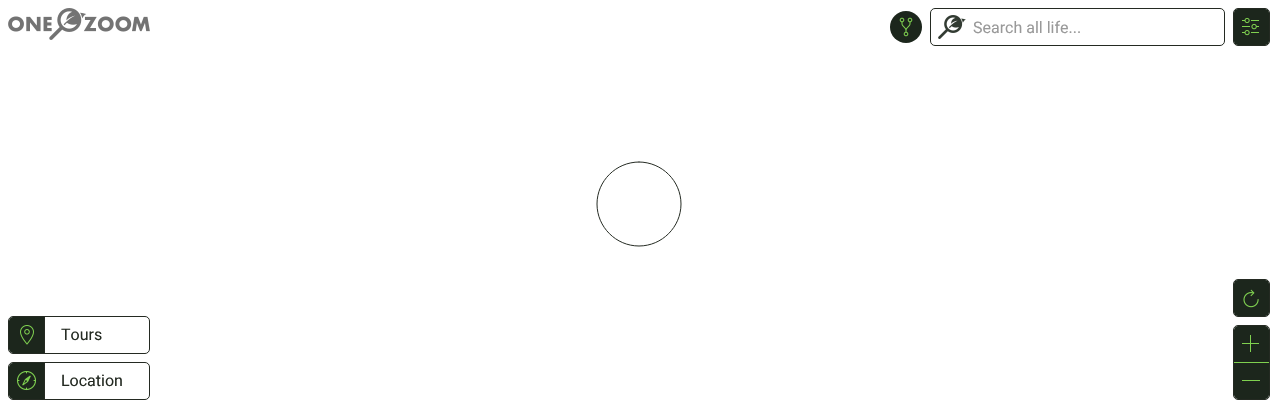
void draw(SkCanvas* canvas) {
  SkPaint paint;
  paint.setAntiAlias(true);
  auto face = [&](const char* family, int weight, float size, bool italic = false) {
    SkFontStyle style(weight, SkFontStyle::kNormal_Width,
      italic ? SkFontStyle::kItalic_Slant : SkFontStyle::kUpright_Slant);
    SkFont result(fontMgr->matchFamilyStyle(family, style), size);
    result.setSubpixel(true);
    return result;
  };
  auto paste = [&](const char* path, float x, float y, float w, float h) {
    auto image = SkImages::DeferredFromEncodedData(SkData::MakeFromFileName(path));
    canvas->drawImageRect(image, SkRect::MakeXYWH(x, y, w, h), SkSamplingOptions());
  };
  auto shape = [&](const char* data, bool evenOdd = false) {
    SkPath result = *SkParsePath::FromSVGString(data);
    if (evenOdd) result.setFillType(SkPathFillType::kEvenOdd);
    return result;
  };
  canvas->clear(0xffffffff);
  paste("img/1.png", 8, 8, 142, 32);
  paint.setColor(0xff1c261c);
  canvas->drawCircle(906, 27, 16, paint);
  paste("img/2.png", 899, 17, 14, 20);
  paint.setStroke(true);
  paint.setStrokeWidth(1);
  paint.setColor(0xff242a22);
  canvas->drawRoundRect(SkRect::MakeXYWH(930.5f, 8.5f, 294, 37), 4.5f, 4.5f, paint);
  paste("img/3.png", 938, 15, 28, 24);
  canvas->drawRoundRect(SkRect::MakeXYWH(1233.5f, 8.5f, 36, 37), 4.5f, 4.5f, paint);
  paint.setStroke(false);
  paint.setColor(0xff1c261c);
  canvas->drawRoundRect(SkRect::MakeXYWH(1234, 9, 35, 36), 4, 4, paint);
  paste("img/4.png", 1242, 17, 17, 19);
  paint.setStroke(true);
  paint.setStrokeCap(SkPaint::kRound_Cap);
  paint.setColor(0xff242a22);
  canvas->drawPath(shape("M639 162C662 162 681 181 681 204C681 227 662 246 639 246C616 246 597 227 597 204C597 181 616 162 639 162"), paint);
  paint.setStrokeCap(SkPaint::kButt_Cap);
  canvas->drawRoundRect(SkRect::MakeXYWH(8.5f, 316.5f, 141, 37), 4.5f, 4.5f, paint);
  paint.setStroke(false);
  paint.setColor(0xff1c261c);
  canvas->drawPath(shape("M13 317H45V353H13C11 353 9 351 9 349V321C9 319 11 317 13 317Z"), paint);
  paint.setColor(0xff242a22);
  canvas->drawRect(SkRect::MakeXYWH(44, 317, 1, 36), paint);
  paste("img/5.png", 20, 325, 14, 20);
  paint.setStroke(true);
  canvas->drawRoundRect(SkRect::MakeXYWH(8.5f, 362.5f, 141, 37), 4.5f, 4.5f, paint);
  paint.setStroke(false);
  paint.setColor(0xff1c261c);
  canvas->drawPath(shape("M13 363H45V399H13C11 399 9 397 9 395V367C9 365 11 363 13 363Z"), paint);
  paint.setColor(0xff242a22);
  canvas->drawRect(SkRect::MakeXYWH(44, 363, 1, 36), paint);
  paste("img/6.png", 17, 371, 20, 20);
  paint.setStroke(true);
  canvas->drawRoundRect(SkRect::MakeXYWH(1233.5f, 279.5f, 36, 37), 4.5f, 4.5f, paint);
  paint.setStroke(false);
  paint.setColor(0xff1c261c);
  canvas->drawRoundRect(SkRect::MakeXYWH(1234, 280, 35, 36), 4, 4, paint);
  paste("img/7.png", 1243, 289, 16, 19);
  paint.setStroke(true);
  paint.setColor(0xff242a22);
  canvas->drawRoundRect(SkRect::MakeXYWH(1233.5f, 325.5f, 36, 74), 4.5f, 4.5f, paint);
  paint.setStroke(false);
  paint.setColor(0xff1c261c);
  canvas->drawPath(shape("M1238 326H1265C1267 326 1269 328 1269 330V362H1234V330C1234 328 1236 326 1238 326Z"), paint);
  paint.setColor(0xff7fd14f);
  canvas->drawRect(SkRect::MakeXYWH(1250, 335, 1, 17), paint);
  canvas->drawRect(SkRect::MakeXYWH(1242, 343, 17, 1), paint);
  paint.setColor(0xff1c261c);
  canvas->drawPath(shape("M1234 362H1269V395C1269 397 1267 399 1265 399H1238C1236 399 1234 397 1234 395Z"), paint);
  paint.setColor(0xff7fd14f);
  canvas->drawRect(SkRect::MakeXYWH(1234, 362, 35, 1), paint);
  canvas->drawRect(SkRect::MakeXYWH(1242, 380, 18, 1), paint);
  auto f0 = face("Roboto", 400, 16);
  paint.setColor(0xff999999);
  canvas->drawString("Search all life...", 973, 33, f0, paint);
  paint.setColor(0xff242a22);
  canvas->drawString("Tours", 61, 340, f0, paint);
  canvas->drawString("Location", 61, 386, f0, paint);
}
